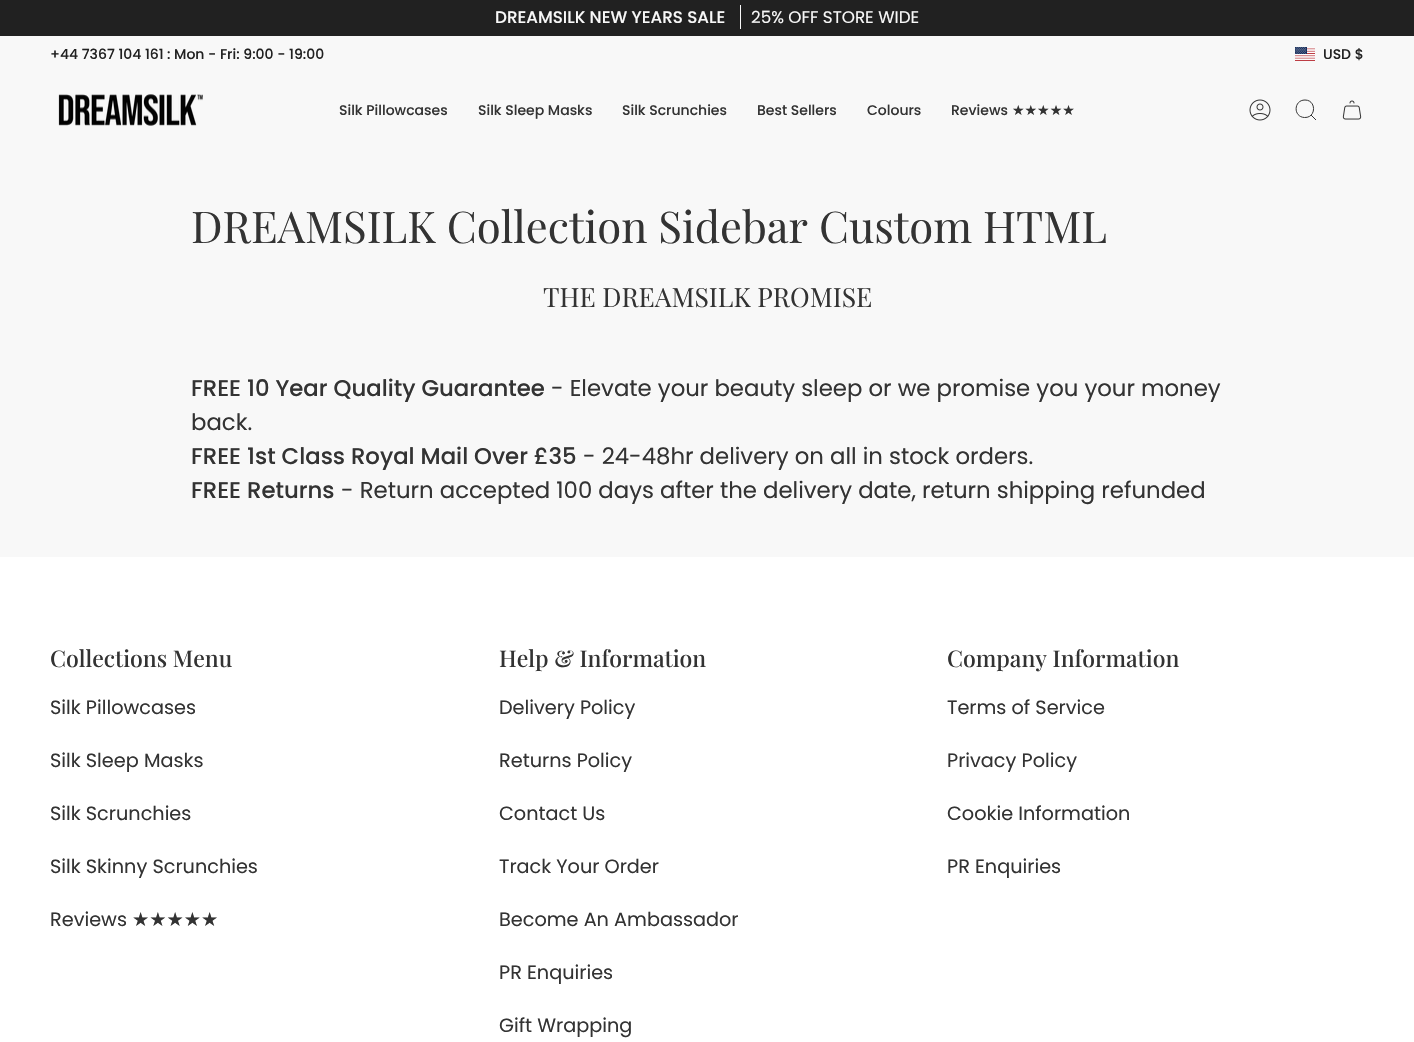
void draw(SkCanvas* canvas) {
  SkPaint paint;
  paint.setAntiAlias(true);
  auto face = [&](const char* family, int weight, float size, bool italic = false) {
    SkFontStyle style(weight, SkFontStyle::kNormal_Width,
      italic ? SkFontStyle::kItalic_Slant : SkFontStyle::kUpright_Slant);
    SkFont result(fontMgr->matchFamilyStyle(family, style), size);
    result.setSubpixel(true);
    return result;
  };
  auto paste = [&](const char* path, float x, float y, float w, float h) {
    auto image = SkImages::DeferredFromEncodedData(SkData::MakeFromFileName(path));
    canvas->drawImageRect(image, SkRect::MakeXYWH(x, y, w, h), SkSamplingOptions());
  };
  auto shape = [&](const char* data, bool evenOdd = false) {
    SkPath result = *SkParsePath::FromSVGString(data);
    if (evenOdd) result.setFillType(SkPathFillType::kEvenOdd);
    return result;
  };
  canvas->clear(0xfff8f8f8);
  paint.setColor(0xff212121);
  canvas->drawRect(SkRect::MakeXYWH(0, 0, 1414, 36), paint);
  paint.setColor(0xfff8f8f8);
  canvas->drawRect(SkRect::MakeXYWH(740, 5, 1, 24), paint);
  paste("img/1.png", 1295, 47, 20, 14);
  paste("img/2.png", 58, 94, 145, 32);
  paste("img/3.png", 1249, 99, 22, 22);
  paint.setStroke(true);
  paint.setStrokeWidth(1);
  paint.setColor(0xff333333);
  canvas->drawPath(shape("M1305 100C1316.5 100 1316.5 118 1304.5 117.5C1293 117 1293.5 100 1305 100ZM1311 115L1316 120"), paint);
  paste("img/4.png", 1342, 100, 20, 20);
  paint.setStroke(false);
  paint.setColor(0xffffffff);
  canvas->drawRect(SkRect::MakeXYWH(0, 557, 1414, 485), paint);
  auto f0 = face("Poppins", 500, 16.75f);
  paint.setColor(0xfff8f8f8);
  canvas->drawString("DREAMSILK NEW YEARS SALE", 495, 23, f0, paint);
  auto f1 = face("Poppins", 400, 16.75f);
  canvas->drawString("25% OFF STORE WIDE", 751, 23, f1, paint);
  auto f2 = face("Poppins", 500, 14);
  paint.setColor(0xff212121);
  {
    const struct { const char* s; float x, y; } items[] = {
      {"+44 7367 104 161", 50, 59},
      {": Mon - Fri: 9:00 - 19:00", 167, 59},
      {"USD $", 1323, 59},
    };
    for (auto [s, x, y] : items) {
      canvas->drawString(s, x, y, f2, paint);
    }
  }
  paint.setColor(0xff333333);
  {
    const struct { const char* s; float x, y; } items[] = {
      {"Silk Pillowcases", 339, 115},
      {"Silk Sleep Masks", 478, 115},
      {"Silk Scrunchies", 622, 115},
      {"Best Sellers", 757, 115},
      {"Colours", 867, 115},
      {"Reviews", 951, 115},
    };
    for (auto [s, x, y] : items) {
      canvas->drawString(s, x, y, f2, paint);
    }
  }
  auto f3 = face("DejaVu Sans", 400, 14);
  canvas->drawString("★★★★★", 1012, 115, f3, paint);
  auto f4 = face("Playfair Display", 400, 43.7f);
  canvas->drawString("DREAMSILK Collection Sidebar Custom HTML", 191, 243, f4, paint);
  auto f5 = face("Playfair Display", 400, 26.5f);
  canvas->drawString("THE DREAMSILK PROMISE", 543, 307, f5, paint);
  auto f6 = face("Poppins", 500, 22.8f);
  canvas->drawString("FREE 10 Year Quality Guarantee", 191, 396, f6, paint);
  auto f7 = face("Poppins", 400, 22.8f);
  canvas->drawString("- Elevate your beauty sleep or we promise you your money", 551, 396, f7, paint);
  canvas->drawString("back.", 191, 430, f7, paint);
  canvas->drawString("FREE 1st Class Royal Mail Over £35", 191, 464, f6, paint);
  canvas->drawString("- 24-48hr delivery on all in stock orders.", 583, 464, f7, paint);
  canvas->drawString("FREE Returns", 191, 498, f6, paint);
  canvas->drawString("- Return accepted 100 days after the delivery date, return shipping refunded", 341, 498, f7, paint);
  auto f8 = face("Playfair Display", 500, 23);
  canvas->drawString("Collections Menu", 50, 667, f8, paint);
  auto f9 = face("Poppins", 400, 19.25f);
  {
    const struct { const char* s; float x, y; } items[] = {
      {"Silk Pillowcases", 50, 714},
      {"Silk Sleep Masks", 50, 767},
      {"Silk Scrunchies", 50, 820},
      {"Silk Skinny Scrunchies", 50, 873},
      {"Reviews", 50, 926},
    };
    for (auto [s, x, y] : items) {
      canvas->drawString(s, x, y, f9, paint);
    }
  }
  auto f10 = face("DejaVu Sans", 400, 19.25f);
  canvas->drawString("★★★★★", 132, 926, f10, paint);
  canvas->drawString("Help & Information", 499, 667, f8, paint);
  {
    const struct { const char* s; float x, y; } items[] = {
      {"Delivery Policy", 499, 714},
      {"Returns Policy", 499, 767},
      {"Contact Us", 499, 820},
      {"Track Your Order", 499, 873},
      {"Become An Ambassador", 499, 926},
      {"PR Enquiries", 499, 979},
      {"Gift Wrapping", 499, 1032},
    };
    for (auto [s, x, y] : items) {
      canvas->drawString(s, x, y, f9, paint);
    }
  }
  canvas->drawString("Company Information", 947, 667, f8, paint);
  {
    const struct { const char* s; float x, y; } items[] = {
      {"Terms of Service", 947, 714},
      {"Privacy Policy", 947, 767},
      {"Cookie Information", 947, 820},
      {"PR Enquiries", 947, 873},
    };
    for (auto [s, x, y] : items) {
      canvas->drawString(s, x, y, f9, paint);
    }
  }
}
